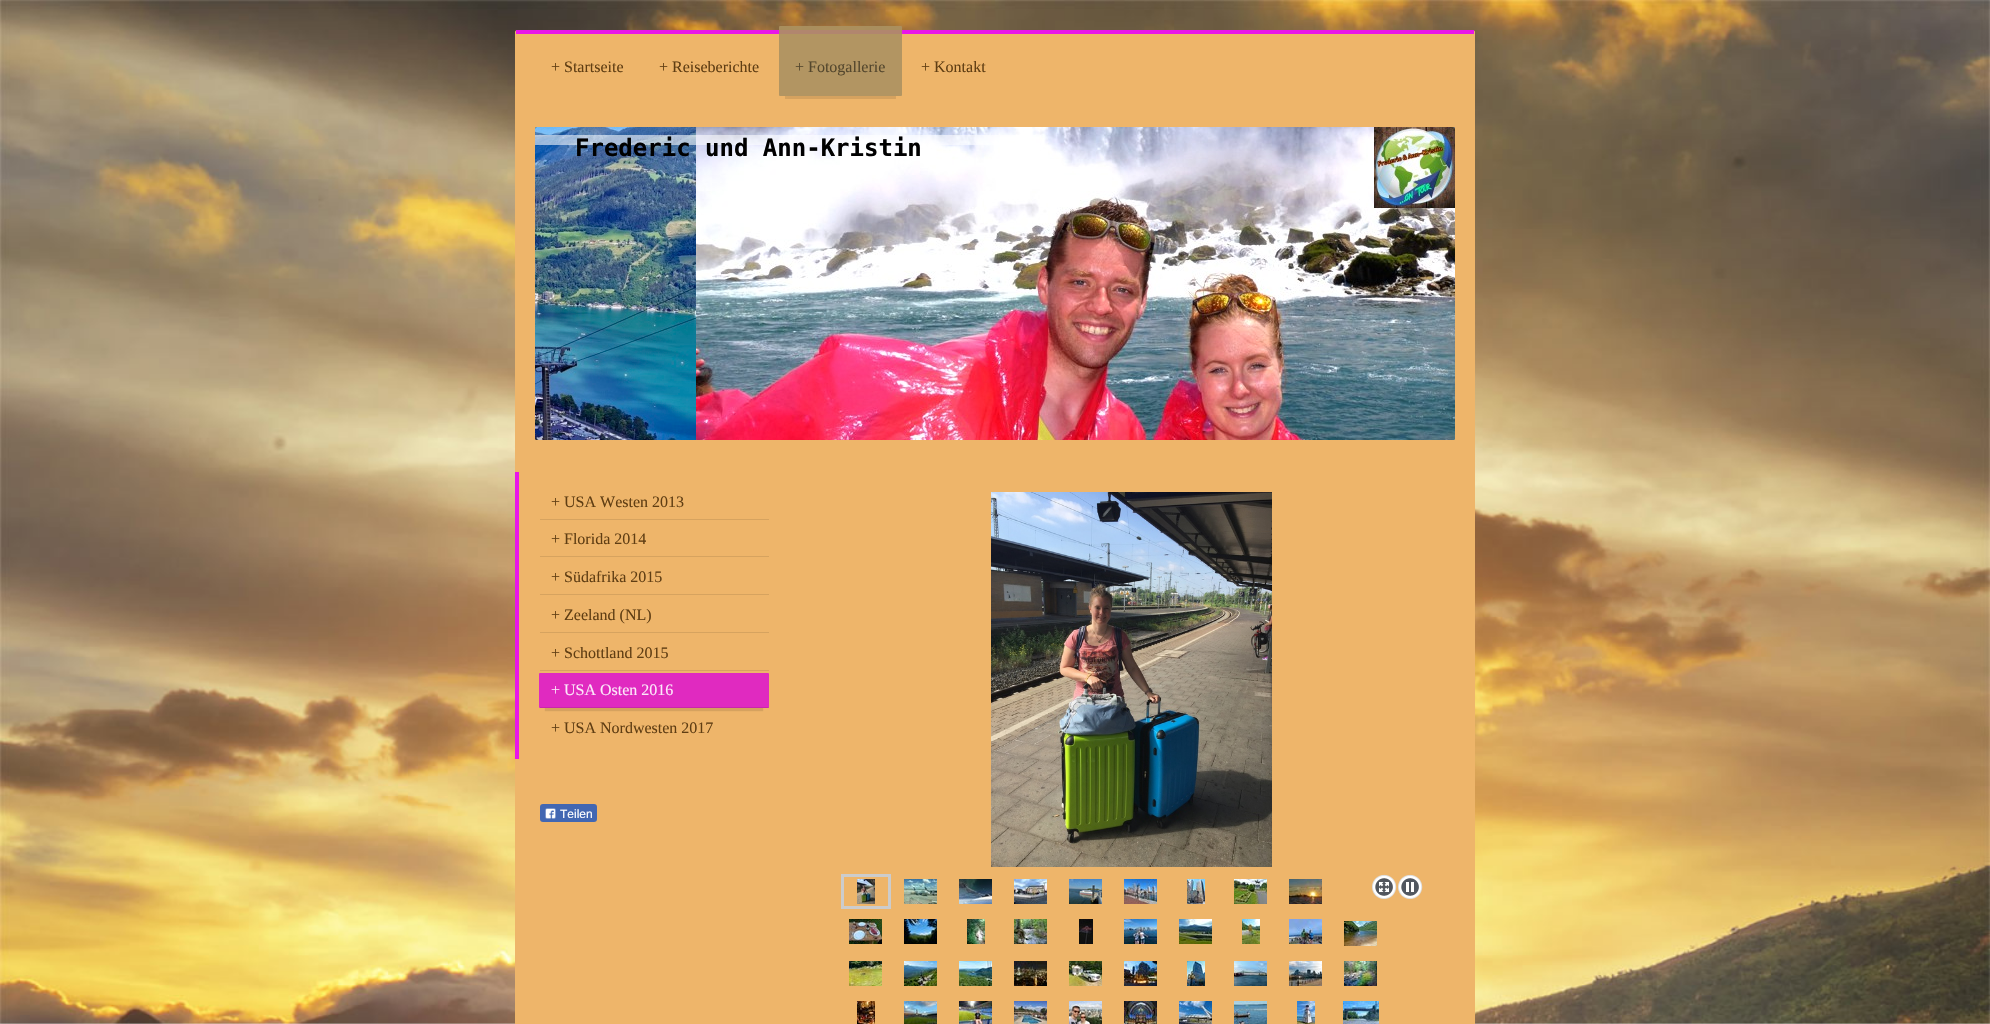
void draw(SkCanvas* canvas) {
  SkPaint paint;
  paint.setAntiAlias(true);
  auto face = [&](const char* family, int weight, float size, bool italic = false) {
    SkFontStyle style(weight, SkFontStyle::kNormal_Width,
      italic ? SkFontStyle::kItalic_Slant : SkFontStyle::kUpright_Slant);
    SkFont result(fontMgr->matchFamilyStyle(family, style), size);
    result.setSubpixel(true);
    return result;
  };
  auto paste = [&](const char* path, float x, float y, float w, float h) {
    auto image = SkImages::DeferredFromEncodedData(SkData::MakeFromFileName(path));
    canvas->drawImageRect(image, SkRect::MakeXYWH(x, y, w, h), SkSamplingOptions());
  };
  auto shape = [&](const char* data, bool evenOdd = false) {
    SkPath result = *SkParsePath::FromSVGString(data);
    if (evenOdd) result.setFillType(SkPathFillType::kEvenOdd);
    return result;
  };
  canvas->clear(0xffffffff);
  paste("img/1.png", 0, 0, 1990, 1024);
  paint.setColor(0xffeeb56a);
  canvas->drawPath(shape("M517 30H1473C1474 30 1475 31 1475 32V1024C1475 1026 1473 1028 1471 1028H519C517 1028 515 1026 515 1024V32C515 31 516 30 517 30Z"), paint);
  paint.setColor(0xffe916e9);
  canvas->drawRect(SkRect::MakeXYWH(516, 30, 958, 4), paint);
  canvas->save();
  canvas->clipRect(SkRect::MakeXYWH(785, 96, 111, 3));
  paint.setColor(0x1a000000);
  paint.setMaskFilter(SkMaskFilter::MakeBlur(kNormal_SkBlurStyle, 0.5f));
  canvas->drawRect(SkRect::MakeXYWH(785, 41, 111, 58), paint);
  paint.setMaskFilter(nullptr);
  canvas->restore();
  paint.setColor(0xe6ab9160);
  canvas->drawRoundRect(SkRect::MakeXYWH(779, 26, 123, 70), 1, 1, paint);
  paste("img/2.png", 535, 127, 920, 313);
  paste("img/3.png", 535, 127, 161, 313);
  paste("img/4.png", 696, 127, 759, 313);
  paint.setColor(0x91ffffff);
  canvas->drawRect(SkRect::MakeXYWH(535, 135, 501, 10), paint);
  paste("img/5.png", 1374, 127, 81, 81);
  {
    const struct { float x, y, w, h; SkColor color; } items[] = {
      {515, 472, 4, 287, 0xffe916e9},
      {540, 519, 229, 1, 0xffd6a35f},
      {540, 556, 229, 1, 0xffd6a35f},
      {540, 594, 229, 1, 0xffd6a35f},
      {540, 632, 229, 1, 0xffd6a35f},
      {540, 670, 229, 1, 0xffd6a35f},
    };
    for (auto [x, y, w, h, color] : items) {
      paint.setColor(color);
      canvas->drawRect(SkRect::MakeXYWH(x, y, w, h), paint);
    }
  }
  paint.setColor(0x1a000000);
  paint.setMaskFilter(SkMaskFilter::MakeBlur(kNormal_SkBlurStyle, 0.5f));
  canvas->drawRect(SkRect::MakeXYWH(545, 688, 218, 23), paint);
  paint.setMaskFilter(nullptr);
  paint.setColor(0xffe02ac0);
  canvas->drawRoundRect(SkRect::MakeXYWH(539, 673, 230, 35), 1, 1, paint);
  paint.setColor(0x1a000000);
  canvas->drawRect(SkRect::MakeXYWH(540, 707, 229, 1), paint);
  paint.setColor(0xff4267b2);
  canvas->drawRoundRect(SkRect::MakeXYWH(540, 804, 57, 18), 3, 3, paint);
  paste("img/6.png", 545, 808, 11, 11);
  paste("img/7.png", 991, 492, 281, 375);
  paint.setStroke(true);
  paint.setStrokeWidth(3);
  paint.setColor(0xffcccccc);
  canvas->drawRect(SkRect::MakeXYWH(842.5f, 875.5f, 47, 32), paint);
  paste("img/8.png", 857, 879, 18, 25);
  paste("img/9.png", 904, 879, 33, 25);
  paste("img/10.png", 959, 879, 33, 25);
  paste("img/11.png", 1014, 879, 33, 25);
  paste("img/12.png", 1069, 879, 33, 25);
  paste("img/13.png", 1124, 879, 33, 25);
  paste("img/14.png", 1187, 879, 18, 25);
  paste("img/15.png", 1234, 879, 33, 25);
  paste("img/16.png", 1289, 879, 33, 25);
  paste("img/17.png", 1372, 874, 25, 25);
  paste("img/18.png", 1398, 874, 25, 25);
  paste("img/19.png", 849, 919, 33, 25);
  paste("img/20.png", 904, 919, 33, 25);
  paste("img/21.png", 967, 919, 18, 25);
  paste("img/22.png", 1014, 919, 33, 25);
  paste("img/23.png", 1079, 919, 14, 25);
  paste("img/24.png", 1124, 919, 33, 25);
  paste("img/25.png", 1179, 919, 33, 25);
  paste("img/26.png", 1242, 919, 18, 25);
  paste("img/27.png", 1289, 919, 33, 25);
  paste("img/28.png", 1344, 921, 33, 25);
  paste("img/29.png", 849, 961, 33, 25);
  paste("img/30.png", 904, 961, 33, 25);
  paste("img/31.png", 959, 961, 33, 25);
  paste("img/32.png", 1014, 961, 33, 25);
  paste("img/33.png", 1069, 961, 33, 25);
  paste("img/34.png", 1124, 961, 33, 25);
  paste("img/35.png", 1187, 961, 18, 25);
  paste("img/36.png", 1234, 961, 33, 25);
  paste("img/37.png", 1289, 961, 33, 25);
  paste("img/38.png", 1344, 961, 33, 25);
  paste("img/39.png", 857, 1001, 18, 23);
  paste("img/40.png", 904, 1001, 33, 23);
  paste("img/41.png", 959, 1001, 33, 23);
  paste("img/42.png", 1014, 1001, 33, 23);
  paste("img/43.png", 1069, 1001, 33, 23);
  paste("img/44.png", 1124, 1001, 33, 23);
  paste("img/45.png", 1179, 1001, 33, 23);
  paste("img/46.png", 1234, 1001, 33, 23);
  paste("img/47.png", 1297, 1001, 18, 23);
  paste("img/48.png", 1343, 1001, 36, 23);
  auto f0 = face("Liberation Serif", 400, 16);
  paint.setStroke(false);
  paint.setColor(0xff603e13);
  canvas->drawString("+ Startseite", 551, 72, f0, paint);
  canvas->drawString("+ Reiseberichte", 659, 72, f0, paint);
  paint.setColor(0xff54472d);
  canvas->drawString("+ Fotogallerie", 795, 72, f0, paint);
  paint.setColor(0xff603e13);
  canvas->drawString("+ Kontakt", 921, 72, f0, paint);
  auto f1 = face("DejaVu Sans Mono", 700, 24);
  paint.setColor(0xff000000);
  canvas->drawString("Frederic und Ann-Kristin", 575, 156, f1, paint);
  paint.setColor(0xff603e13);
  {
    const struct { const char* s; float x, y; } items[] = {
      {"+ USA Westen 2013", 551, 507},
      {"+ Florida 2014", 551, 544},
      {"+ Südafrika 2015", 551, 582},
      {"+ Zeeland (NL)", 551, 620},
      {"+ Schottland 2015", 551, 658},
    };
    for (auto [s, x, y] : items) {
      canvas->drawString(s, x, y, f0, paint);
    }
  }
  paint.setColor(0xfffce8fa);
  canvas->drawString("+ USA Osten 2016", 551, 695, f0, paint);
  paint.setColor(0xff603e13);
  canvas->drawString("+ USA Nordwesten 2017", 551, 733, f0, paint);
  auto f2 = face("Liberation Sans", 400, 12);
  paint.setColor(0xffffffff);
  canvas->drawString("Teilen", 560, 818, f2, paint);
}
